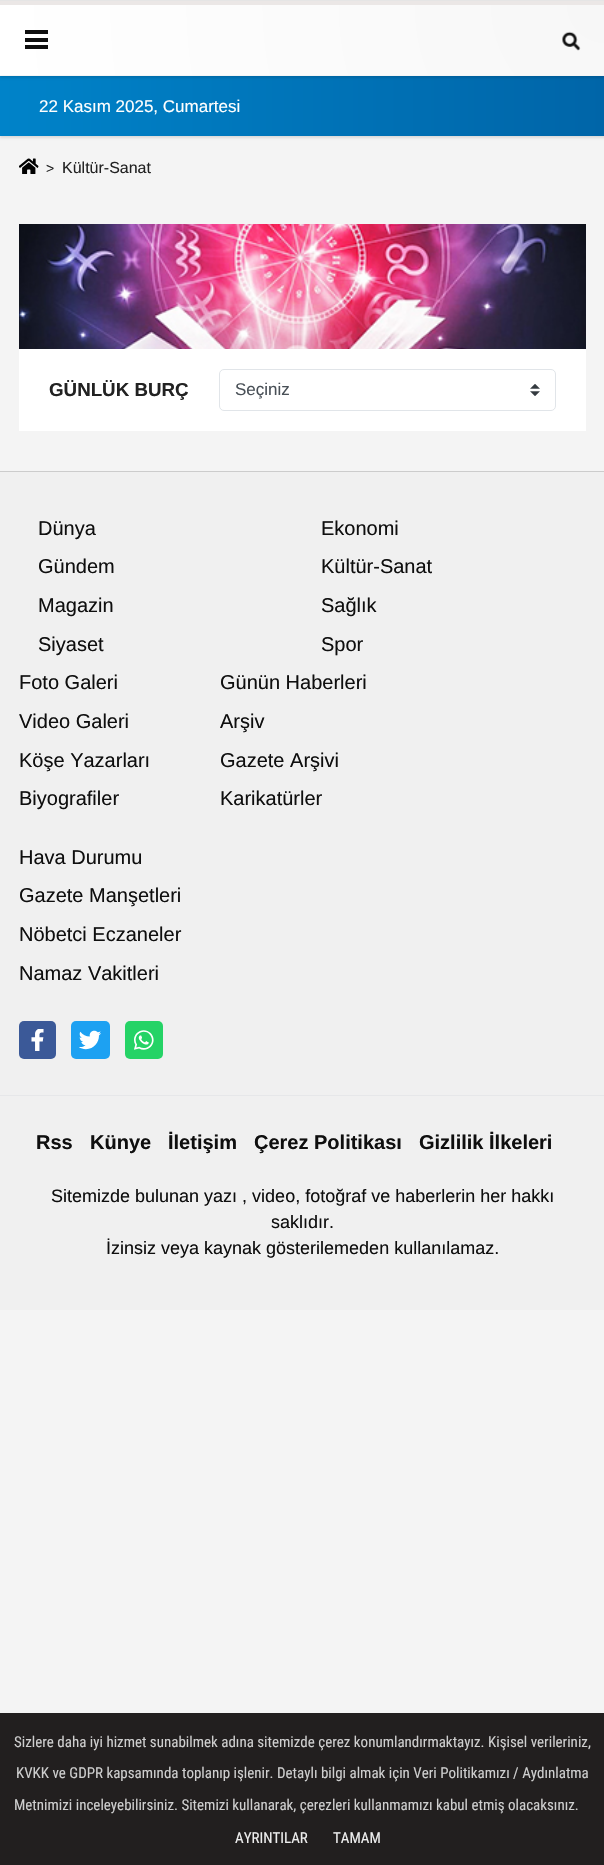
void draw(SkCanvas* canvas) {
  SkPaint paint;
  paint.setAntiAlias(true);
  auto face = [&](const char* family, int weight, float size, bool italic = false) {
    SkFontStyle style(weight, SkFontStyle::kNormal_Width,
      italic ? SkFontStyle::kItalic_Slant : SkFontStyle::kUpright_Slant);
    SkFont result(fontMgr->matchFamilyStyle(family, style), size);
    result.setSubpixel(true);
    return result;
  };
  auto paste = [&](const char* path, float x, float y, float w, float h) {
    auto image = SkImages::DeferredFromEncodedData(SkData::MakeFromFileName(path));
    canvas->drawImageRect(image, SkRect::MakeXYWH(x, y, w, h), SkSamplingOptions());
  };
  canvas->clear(0xfff4f4f4);
  paint.setColor(0xffe6e6e6);
  canvas->drawRect(SkRect::MakeXYWH(0, 0, 604, 1), paint);
  paint.setColor(0x1a000000);
  paint.setMaskFilter(SkMaskFilter::MakeBlur(kNormal_SkBlurStyle, 1));
  canvas->drawRect(SkRect::MakeXYWH(0, 78, 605, 60), paint);
  paint.setMaskFilter(nullptr);
  {
    const SkColor colors[] = {0xff0083c9, 0xff0065a8};
    const float stops[] = {0, 1};
    const SkPoint ends[] = {{0, 106}, {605, 106}};
    paint.setShader(SkGradientShader::MakeLinear(ends, colors, stops, 2, SkTileMode::kClamp));
    paint.setAlpha(255);
  }
  canvas->drawRect(SkRect::MakeXYWH(0, 76, 604, 60), paint);
  paint.setShader(nullptr);
  paint.setColor(0x1a000000);
  paint.setMaskFilter(SkMaskFilter::MakeBlur(kNormal_SkBlurStyle, 1));
  canvas->drawRect(SkRect::MakeXYWH(0, 3, 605, 75), paint);
  paint.setMaskFilter(nullptr);
  {
    const SkColor colors[] = {0xfff7f7f7, 0xffffffff};
    const float stops[] = {0, 1};
    paint.setShader(SkGradientShader::MakeRadial({605, 5}, 609, colors, stops, 2, SkTileMode::kClamp));
    paint.setAlpha(255);
  }
  canvas->drawRect(SkRect::MakeXYWH(0, 5, 604, 70), paint);
  paint.setShader(nullptr);
  {
    const struct { float x, y, w, h; SkColor color; } items[] = {
      {0, 1, 604, 4, 0xffebe7e6},
      {0, 75, 604, 1, 0xfff5f5f5},
      {25, 30, 23, 4, 0xff0f0f0f},
      {25, 38, 23, 4, 0xff0f0f0f},
      {25, 45, 23, 4, 0xff0f0f0f},
    };
    for (auto [x, y, w, h, color] : items) {
      paint.setColor(color);
      canvas->drawRect(SkRect::MakeXYWH(x, y, w, h), paint);
    }
  }
  paste("img/1.png", 562, 31, 19, 20);
  paste("img/2.png", 19, 158, 20, 16);
  paste("img/3.png", 19, 224, 567, 125);
  paint.setColor(0xffffffff);
  canvas->drawRect(SkRect::MakeXYWH(19, 349, 567, 82), paint);
  paste("img/4.png", 530, 384, 10, 12);
  paint.setStroke(true);
  paint.setStrokeWidth(1);
  paint.setColor(0xffe1e5e9);
  canvas->drawRoundRect(SkRect::MakeXYWH(219.5f, 369.5f, 336, 41), 4.5f, 4.5f, paint);
  paint.setStroke(false);
  paint.setColor(0xfff0f0f0);
  canvas->drawRect(SkRect::MakeXYWH(0, 472, 604, 838), paint);
  paint.setColor(0xffcccccc);
  canvas->drawRect(SkRect::MakeXYWH(0, 471, 604, 1), paint);
  paint.setColor(0xff3b5998);
  canvas->drawRoundRect(SkRect::MakeXYWH(19, 1021, 37, 38), 5, 5, paint);
  paste("img/5.png", 31, 1029, 13, 22);
  paint.setColor(0xff1da1f2);
  canvas->drawRoundRect(SkRect::MakeXYWH(71, 1021, 39, 38), 5, 5, paint);
  paste("img/6.png", 79, 1030, 22, 20);
  paint.setColor(0xff25d366);
  canvas->drawRoundRect(SkRect::MakeXYWH(125, 1021, 38, 38), 5, 5, paint);
  paste("img/7.png", 134, 1030, 20, 20);
  paint.setColor(0xffe6e7e9);
  canvas->drawRect(SkRect::MakeXYWH(0, 1095, 604, 1), paint);
  paint.setColor(0xff221f1f);
  canvas->drawRect(SkRect::MakeXYWH(0, 1713, 604, 152), paint);
  auto f0 = face("Liberation Sans", 400, 17);
  paint.setColor(0xffffffff);
  canvas->drawString("22 Kasım 2025, Cumartesi", 39, 112, f0, paint);
  auto f1 = face("Liberation Sans", 400, 14);
  paint.setColor(0xff222222);
  canvas->drawString(">", 46, 173, f1, paint);
  auto f2 = face("Liberation Sans", 400, 16);
  canvas->drawString("Kültür-Sanat", 62, 173, f2, paint);
  auto f3 = face("Liberation Sans", 700, 18.75f);
  canvas->drawString("GÜNLÜK BURÇ", 49, 396, f3, paint);
  paint.setColor(0xff495057);
  canvas->drawString("Seçiniz", 235, 395, f0, paint);
  auto f4 = face("Liberation Sans", 400, 20);
  paint.setColor(0xff0f0f0f);
  {
    const struct { const char* s; float x, y; } items[] = {
      {"Dünya", 38, 535},
      {"Ekonomi", 321, 535},
      {"Gündem", 38, 573},
      {"Kültür-Sanat", 321, 573},
      {"Magazin", 38, 612},
      {"Sağlık", 321, 612},
      {"Siyaset", 38, 651},
      {"Spor", 321, 651},
      {"Foto Galeri", 19, 689},
      {"Video Galeri", 19, 728},
      {"Köşe Yazarları", 19, 767},
      {"Biyografiler", 19, 805},
      {"Günün Haberleri", 220, 689},
      {"Arşiv", 220, 728},
      {"Gazete Arşivi", 220, 767},
      {"Karikatürler", 220, 805},
      {"Hava Durumu", 19, 864},
      {"Gazete Manşetleri", 19, 902},
      {"Nöbetci Eczaneler", 19, 941},
      {"Namaz Vakitleri", 19, 980},
    };
    for (auto [s, x, y] : items) {
      canvas->drawString(s, x, y, f4, paint);
    }
  }
  auto f5 = face("Liberation Sans", 700, 20);
  {
    const struct { const char* s; float x, y; } items[] = {
      {"Rss", 36, 1149},
      {"Künye", 90, 1149},
      {"İletişim", 168, 1149},
      {"Çerez Politikası", 254, 1149},
      {"Gizlilik İlkeleri", 419, 1149},
    };
    for (auto [s, x, y] : items) {
      canvas->drawString(s, x, y, f5, paint);
    }
  }
  auto f6 = face("Liberation Sans", 400, 18);
  {
    const struct { const char* s; float x, y; } items[] = {
      {"Sitemizde bulunan yazı , video, fotoğraf ve haberlerin her hakkı", 51, 1202},
      {"saklıdır.", 271, 1228},
      {"İzinsiz veya kaynak gösterilemeden kullanılamaz.", 106, 1254},
    };
    for (auto [s, x, y] : items) {
      canvas->drawString(s, x, y, f6, paint);
    }
  }
  auto f7 = face("Roboto Condensed", 400, 15);
  paint.setColor(0xffcecece);
  {
    const struct { const char* s; float x, y; } items[] = {
      {"Sizlere daha iyi hizmet sunabilmek adına sitemizde çerez konumlandırmaktayız. Kişisel verileriniz,", 14, 1747},
      {"KVKK ve GDPR kapsamında toplanıp işlenir. Detaylı bilgi almak için Veri Politikamızı / Aydınlatma", 16, 1778},
      {"Metnimizi inceleyebilirsiniz. Sitemizi kullanarak, çerezleri kullanmamızı kabul etmiş olacaksınız.", 14, 1810},
    };
    for (auto [s, x, y] : items) {
      canvas->drawString(s, x, y, f7, paint);
    }
  }
  paint.setColor(0xffeeeeee);
  canvas->drawString("AYRINTILAR", 235, 1843, f7, paint);
  canvas->drawString("TAMAM", 333, 1843, f7, paint);
}
